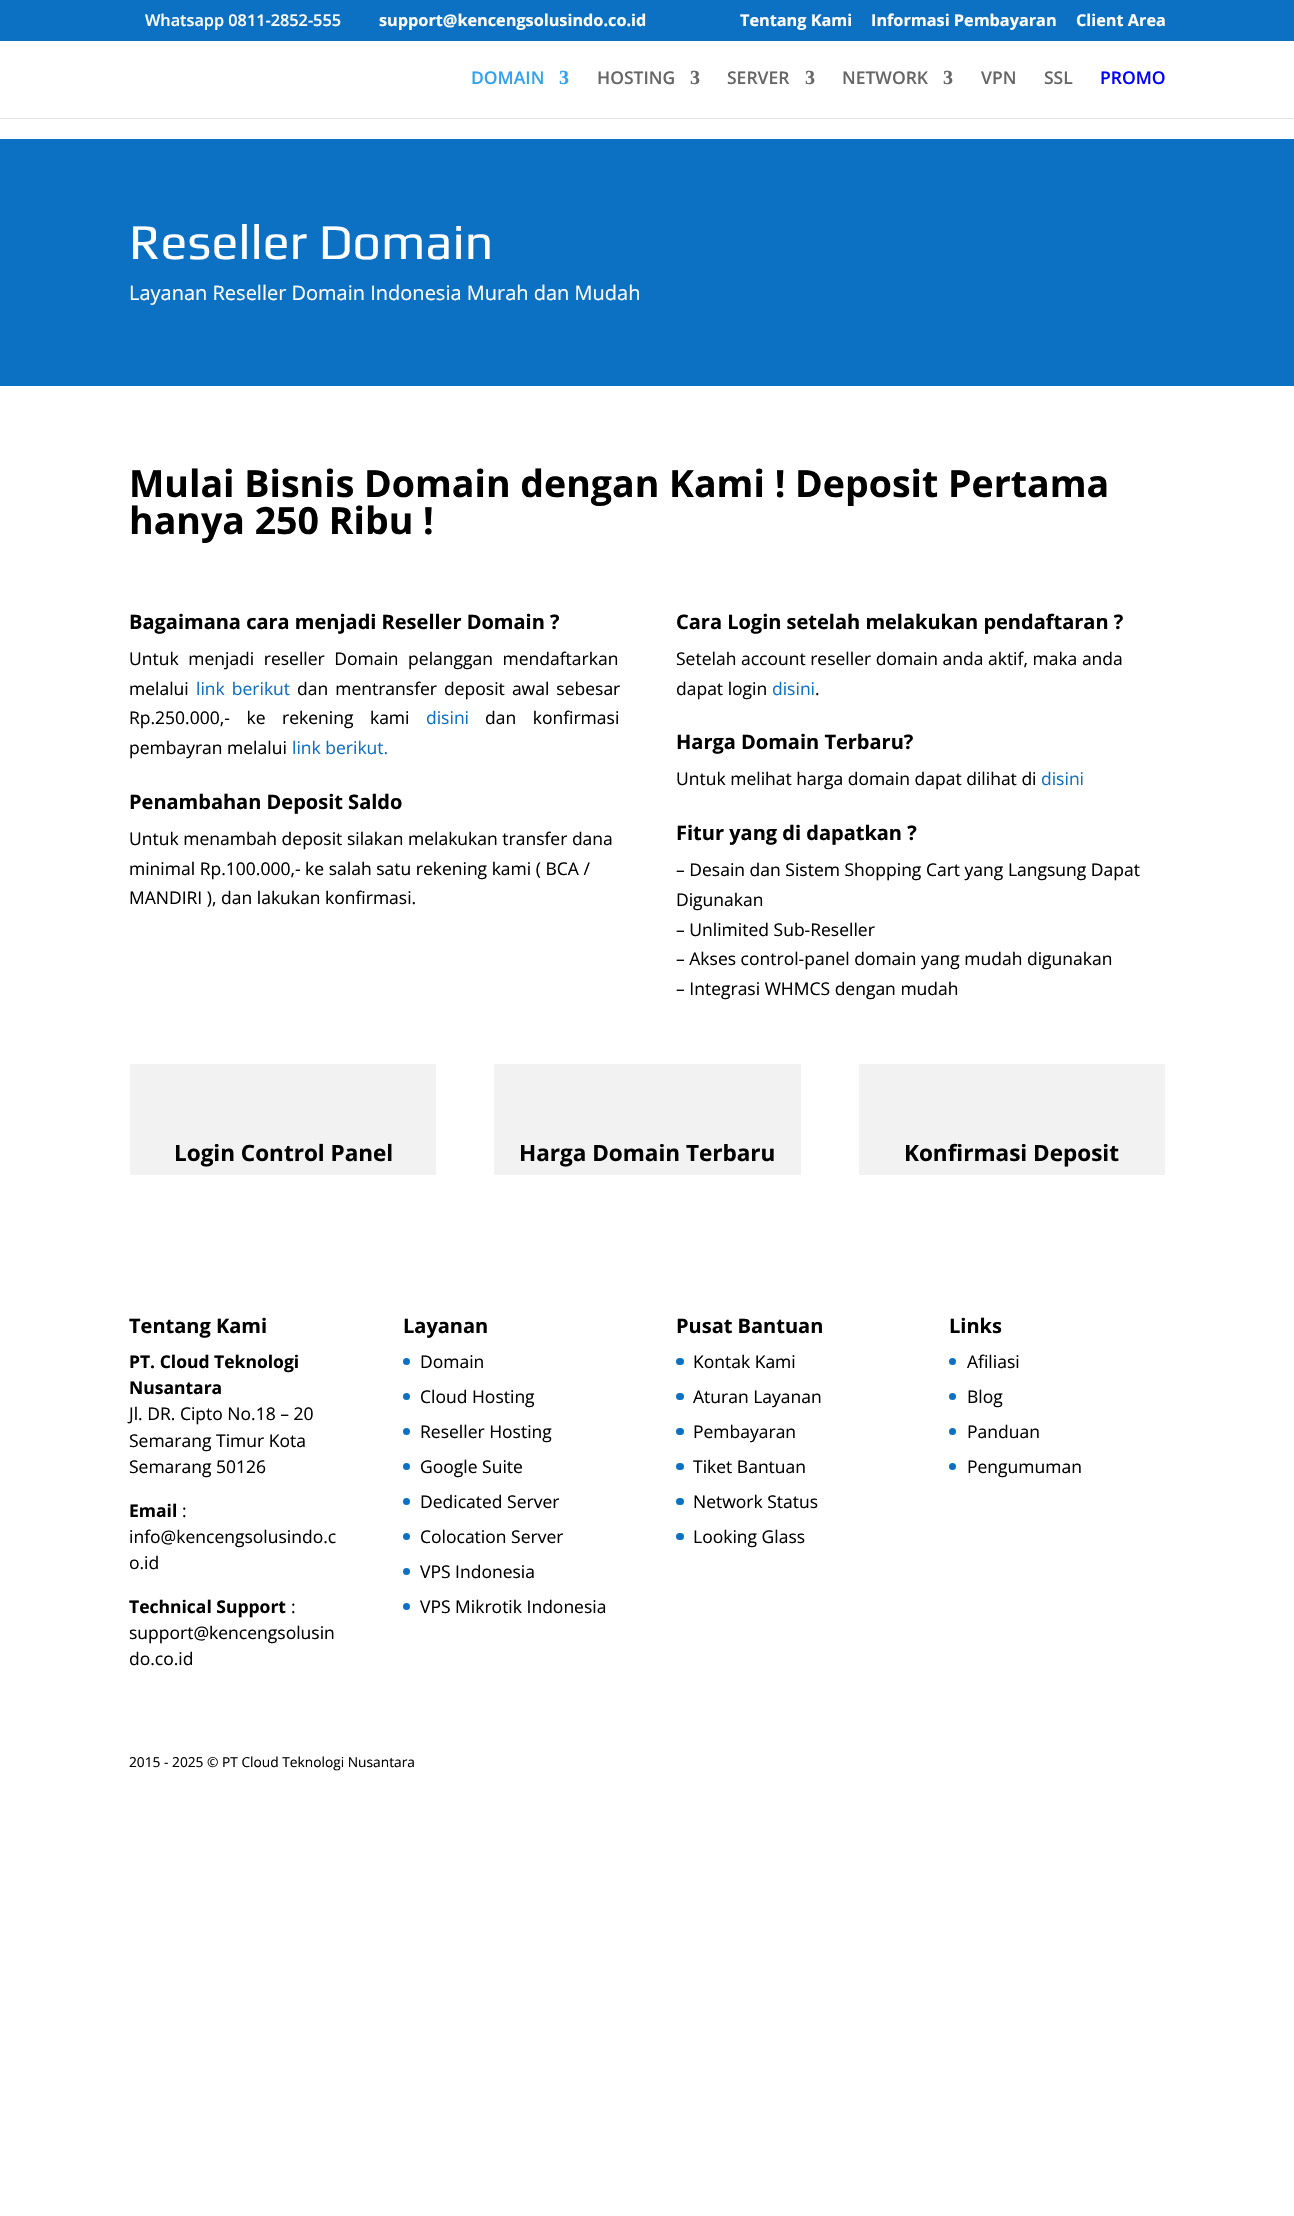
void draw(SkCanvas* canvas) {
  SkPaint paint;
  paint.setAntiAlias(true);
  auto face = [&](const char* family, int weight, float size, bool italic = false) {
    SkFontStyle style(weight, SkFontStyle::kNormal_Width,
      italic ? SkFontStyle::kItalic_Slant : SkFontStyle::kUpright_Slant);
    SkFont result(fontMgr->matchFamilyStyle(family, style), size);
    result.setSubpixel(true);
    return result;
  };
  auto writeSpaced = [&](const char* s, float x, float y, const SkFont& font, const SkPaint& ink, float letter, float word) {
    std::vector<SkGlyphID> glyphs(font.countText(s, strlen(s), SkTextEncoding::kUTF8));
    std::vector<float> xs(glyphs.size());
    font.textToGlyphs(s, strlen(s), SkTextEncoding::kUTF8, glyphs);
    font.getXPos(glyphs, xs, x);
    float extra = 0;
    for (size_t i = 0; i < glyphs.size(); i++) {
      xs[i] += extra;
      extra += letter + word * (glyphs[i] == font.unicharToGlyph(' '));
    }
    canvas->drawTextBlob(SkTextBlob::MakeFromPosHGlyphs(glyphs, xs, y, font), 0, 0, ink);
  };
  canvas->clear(0xffffffff);
  {
    const struct { float x, y, w, h; SkColor color; } items[] = {
      {0, 0, 1294, 41, 0xff0c71c3},
      {0, 118, 1294, 1, 0xffe6e6e6},
      {0, 139, 1294, 247, 0xff0c71c3},
      {130, 1064, 306, 111, 0xfff2f2f2},
      {494, 1064, 307, 111, 0xfff2f2f2},
      {859, 1064, 306, 111, 0xfff2f2f2},
    };
    for (auto [x, y, w, h, color] : items) {
      paint.setColor(color);
      canvas->drawRect(SkRect::MakeXYWH(x, y, w, h), paint);
    }
  }
  paint.setColor(0xff0c71c3);
  canvas->drawCircle(406.5f, 1361.5f, 3.5f, paint);
  canvas->drawCircle(406.5f, 1396.5f, 3.5f, paint);
  canvas->drawCircle(406.5f, 1431.5f, 3.5f, paint);
  canvas->drawCircle(406.5f, 1466.5f, 3.5f, paint);
  canvas->drawCircle(406.5f, 1501.5f, 3.5f, paint);
  canvas->drawCircle(406.5f, 1536.5f, 3.5f, paint);
  canvas->drawCircle(406.5f, 1571.5f, 3.5f, paint);
  canvas->drawCircle(406.5f, 1606.5f, 3.5f, paint);
  canvas->drawRoundRect(SkRect::MakeXYWH(676, 1358, 8, 7), 3.5f, 3.5f, paint);
  canvas->drawRoundRect(SkRect::MakeXYWH(676, 1393, 8, 7), 3.5f, 3.5f, paint);
  canvas->drawRoundRect(SkRect::MakeXYWH(676, 1428, 8, 7), 3.5f, 3.5f, paint);
  canvas->drawRoundRect(SkRect::MakeXYWH(676, 1463, 8, 7), 3.5f, 3.5f, paint);
  canvas->drawRoundRect(SkRect::MakeXYWH(676, 1498, 8, 7), 3.5f, 3.5f, paint);
  canvas->drawRoundRect(SkRect::MakeXYWH(676, 1533, 8, 7), 3.5f, 3.5f, paint);
  canvas->drawCircle(952.5f, 1361.5f, 3.5f, paint);
  canvas->drawCircle(952.5f, 1396.5f, 3.5f, paint);
  canvas->drawCircle(952.5f, 1431.5f, 3.5f, paint);
  canvas->drawCircle(952.5f, 1466.5f, 3.5f, paint);
  auto f0 = face("Open Sans", 600, 16.25f);
  paint.setColor(0xffffffff);
  canvas->drawString("Whatsapp 0811-2852-555", 145, 26, f0, paint);
  auto f1 = face("Open Sans", 700, 16.25f);
  {
    const struct { const char* s; float x, y; } items[] = {
      {"support@kencengsolusindo.co.id", 379, 26},
      {"Tentang Kami", 740, 26},
      {"Informasi Pembayaran", 871, 26},
      {"Client Area", 1076, 26},
    };
    for (auto [s, x, y] : items) {
      canvas->drawString(s, x, y, f1, paint);
    }
  }
  auto f2 = face("Open Sans", 600, 17.5f);
  paint.setColor(0xff2ea3f2);
  canvas->drawString("DOMAIN", 471, 84, f2, paint);
  auto f3 = face("Liberation Serif", 700, 20);
  canvas->drawString("3", 559, 84, f3, paint);
  paint.setColor(0xff666666);
  canvas->drawString("HOSTING", 597, 84, f2, paint);
  canvas->drawString("3", 690, 84, f3, paint);
  canvas->drawString("SERVER", 727, 84, f2, paint);
  canvas->drawString("3", 805, 84, f3, paint);
  canvas->drawString("NETWORK", 842, 84, f2, paint);
  canvas->drawString("3", 943, 84, f3, paint);
  canvas->drawString("VPN", 981, 84, f2, paint);
  canvas->drawString("SSL", 1044, 84, f2, paint);
  paint.setColor(0xff0000ff);
  canvas->drawString("PROMO", 1100, 84, f2, paint);
  auto f4 = face("Play", 400, 50);
  paint.setColor(0xffffffff);
  canvas->drawString("Reseller Domain", 129, 259, f4, paint);
  auto f5 = face("Open Sans", 400, 20);
  canvas->drawString("Layanan Reseller Domain Indonesia Murah dan Mudah", 129, 300, f5, paint);
  auto f6 = face("Open Sans", 700, 37.5f);
  paint.setColor(0xff000000);
  canvas->drawString("Mulai Bisnis Domain dengan Kami ! Deposit Pertama", 129, 497, f6, paint);
  canvas->drawString("hanya 250 Ribu !", 129, 534, f6, paint);
  auto f7 = face("Open Sans", 700, 20);
  canvas->drawString("Bagaimana cara menjadi Reseller Domain ?", 129, 629, f7, paint);
  auto f8 = face("Open Sans", 400, 17.5f);
  writeSpaced("Untuk menjadi reseller Domain pelanggan mendaftarkan", 129, 665, f8, paint, 0, 5);
  canvas->drawString("melalui", 129, 695, f8, paint);
  paint.setColor(0xff0c71c3);
  writeSpaced("link berikut", 196, 695, f8, paint, 0, 2.5f);
  paint.setColor(0xff000000);
  writeSpaced("dan mentransfer deposit awal sebesar", 297, 695, f8, paint, 0, 2.5f);
  writeSpaced("Rp.250.000,- ke rekening kami", 129, 724, f8, paint, 0, 12);
  paint.setColor(0xff0c71c3);
  canvas->drawString("disini", 426, 724, f8, paint);
  paint.setColor(0xff000000);
  writeSpaced("dan konfirmasi", 485, 724, f8, paint, 0, 12);
  canvas->drawString("pembayran melalui", 129, 754, f8, paint);
  paint.setColor(0xff0c71c3);
  canvas->drawString("link berikut.", 292, 754, f8, paint);
  paint.setColor(0xff000000);
  canvas->drawString("Penambahan Deposit Saldo", 129, 809, f7, paint);
  {
    const struct { const char* s; float x, y; } items[] = {
      {"Untuk menambah deposit silakan melakukan transfer dana", 129, 845},
      {"minimal Rp.100.000,- ke salah satu rekening kami ( BCA /", 129, 875},
      {"MANDIRI ), dan lakukan konfirmasi.", 129, 904},
    };
    for (auto [s, x, y] : items) {
      canvas->drawString(s, x, y, f8, paint);
    }
  }
  canvas->drawString("Cara Login setelah melakukan pendaftaran ?", 676, 629, f7, paint);
  canvas->drawString("Setelah account reseller domain anda aktif, maka anda", 676, 665, f8, paint);
  canvas->drawString("dapat login", 676, 695, f8, paint);
  paint.setColor(0xff0c71c3);
  canvas->drawString("disini", 772, 695, f8, paint);
  paint.setColor(0xff000000);
  canvas->drawString(".", 815, 695, f8, paint);
  canvas->drawString("Harga Domain Terbaru?", 676, 749, f7, paint);
  canvas->drawString("Untuk melihat harga domain dapat dilihat di", 676, 785, f8, paint);
  paint.setColor(0xff0c71c3);
  canvas->drawString("disini", 1041, 785, f8, paint);
  paint.setColor(0xff000000);
  canvas->drawString("Fitur yang di dapatkan ?", 676, 840, f7, paint);
  {
    const struct { const char* s; float x, y; } items[] = {
      {"– Desain dan Sistem Shopping Cart yang Langsung Dapat", 676, 876},
      {"Digunakan", 676, 906},
      {"– Unlimited Sub-Reseller", 676, 936},
      {"– Akses control-panel domain yang mudah digunakan", 676, 965},
      {"– Integrasi WHMCS dengan mudah", 676, 995},
    };
    for (auto [s, x, y] : items) {
      canvas->drawString(s, x, y, f8, paint);
    }
  }
  auto f9 = face("Open Sans", 700, 22.5f);
  {
    const struct { const char* s; float x, y; } items[] = {
      {"Login Control Panel", 174, 1161},
      {"Harga Domain Terbaru", 519, 1161},
      {"Konfirmasi Deposit", 904, 1161},
    };
    for (auto [s, x, y] : items) {
      canvas->drawString(s, x, y, f9, paint);
    }
  }
  canvas->drawString("Tentang Kami", 129, 1333, f7, paint);
  auto f10 = face("Open Sans", 700, 17.5f);
  canvas->drawString("PT. Cloud Teknologi", 129, 1368, f10, paint);
  canvas->drawString("Nusantara", 129, 1394, f10, paint);
  {
    const struct { const char* s; float x, y; } items[] = {
      {"Jl. DR. Cipto No.18 – 20", 129, 1420},
      {"Semarang Timur Kota", 129, 1447},
      {"Semarang 50126", 129, 1473},
    };
    for (auto [s, x, y] : items) {
      canvas->drawString(s, x, y, f8, paint);
    }
  }
  canvas->drawString("Email", 129, 1517, f10, paint);
  {
    const struct { const char* s; float x, y; } items[] = {
      {":", 182, 1517},
      {"info@kencengsolusindo.c", 129, 1543},
      {"o.id", 129, 1569},
    };
    for (auto [s, x, y] : items) {
      canvas->drawString(s, x, y, f8, paint);
    }
  }
  canvas->drawString("Technical Support", 129, 1613, f10, paint);
  {
    const struct { const char* s; float x, y; } items[] = {
      {":", 291, 1613},
      {"support@kencengsolusin", 129, 1639},
      {"do.co.id", 129, 1665},
    };
    for (auto [s, x, y] : items) {
      canvas->drawString(s, x, y, f8, paint);
    }
  }
  canvas->drawString("Layanan", 403, 1333, f7, paint);
  {
    const struct { const char* s; float x, y; } items[] = {
      {"Domain", 420, 1368},
      {"Cloud Hosting", 420, 1403},
      {"Reseller Hosting", 420, 1438},
      {"Google Suite", 420, 1473},
      {"Dedicated Server", 420, 1508},
      {"Colocation Server", 420, 1543},
      {"VPS Indonesia", 420, 1578},
      {"VPS Mikrotik Indonesia", 420, 1613},
    };
    for (auto [s, x, y] : items) {
      canvas->drawString(s, x, y, f8, paint);
    }
  }
  canvas->drawString("Pusat Bantuan", 676, 1333, f7, paint);
  {
    const struct { const char* s; float x, y; } items[] = {
      {"Kontak Kami", 693, 1368},
      {"Aturan Layanan", 693, 1403},
      {"Pembayaran", 693, 1438},
      {"Tiket Bantuan", 693, 1473},
      {"Network Status", 693, 1508},
      {"Looking Glass", 693, 1543},
    };
    for (auto [s, x, y] : items) {
      canvas->drawString(s, x, y, f8, paint);
    }
  }
  canvas->drawString("Links", 949, 1333, f7, paint);
  {
    const struct { const char* s; float x, y; } items[] = {
      {"Afiliasi", 967, 1368},
      {"Blog", 967, 1403},
      {"Panduan", 967, 1438},
      {"Pengumuman", 967, 1473},
    };
    for (auto [s, x, y] : items) {
      canvas->drawString(s, x, y, f8, paint);
    }
  }
  auto f11 = face("Open Sans", 400, 13.75f);
  canvas->drawString("2015 - 2025 © PT Cloud Teknologi Nusantara", 129, 1767, f11, paint);
}
